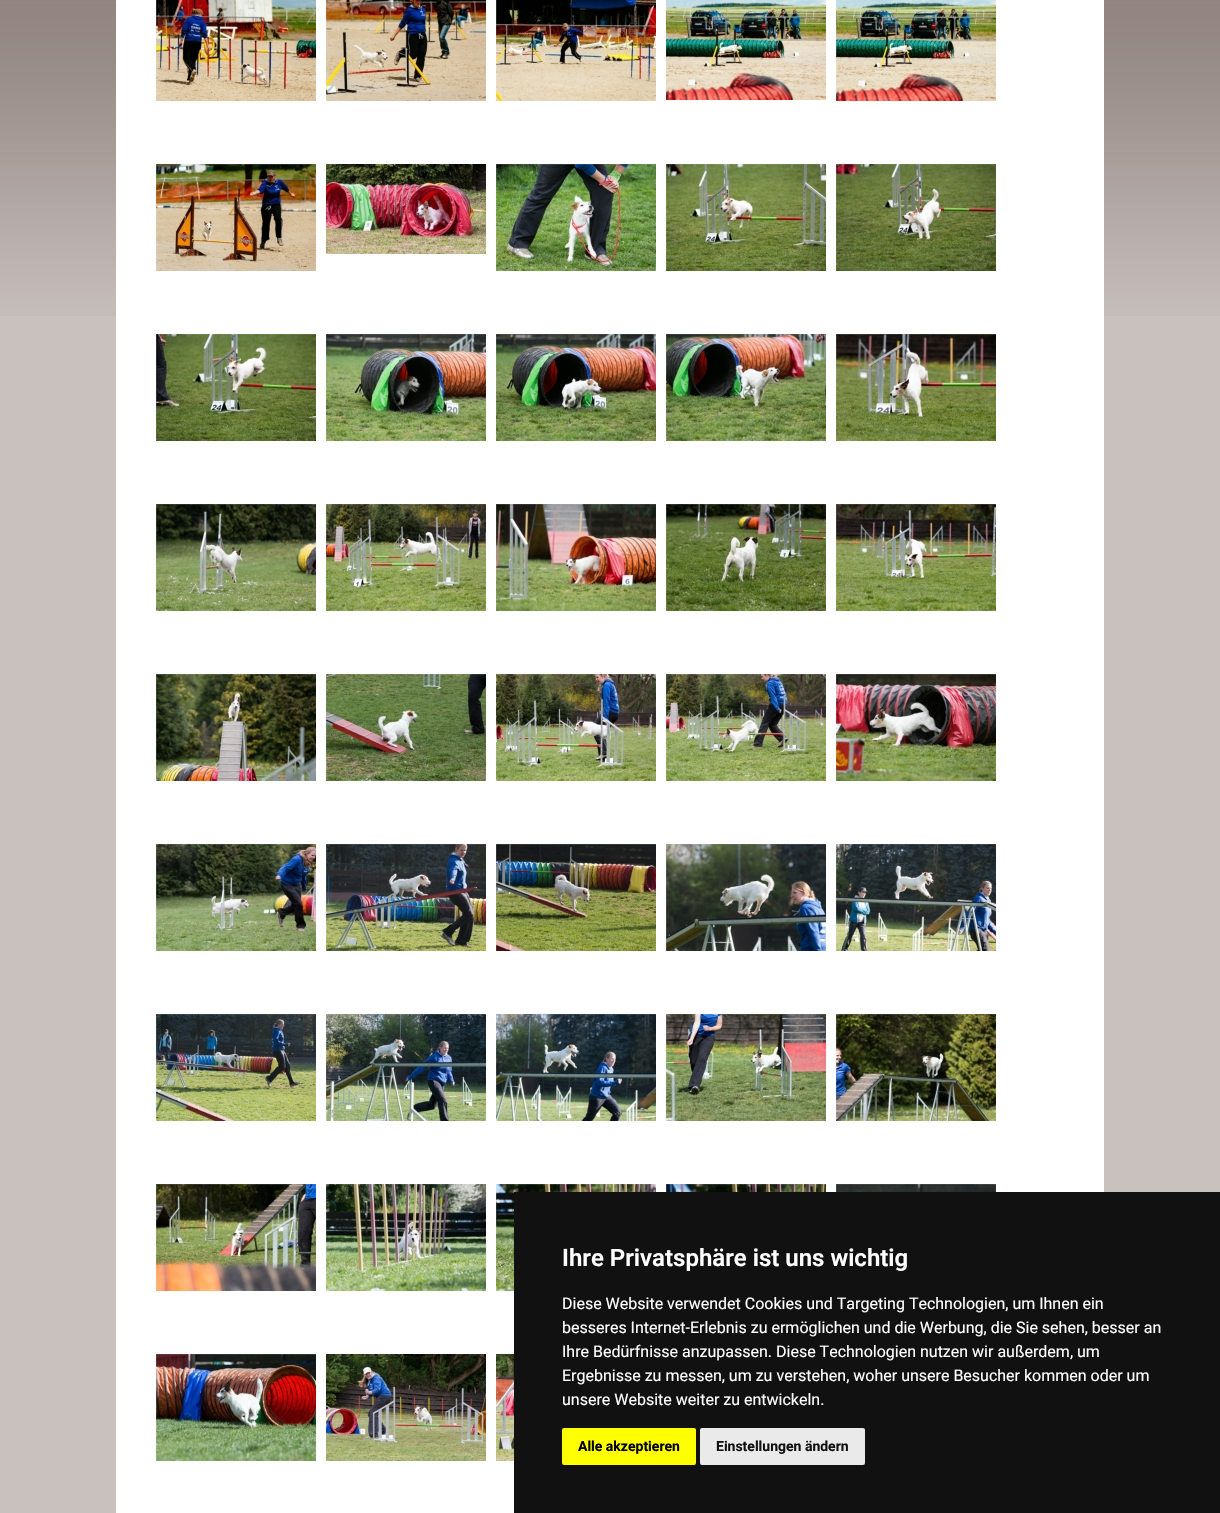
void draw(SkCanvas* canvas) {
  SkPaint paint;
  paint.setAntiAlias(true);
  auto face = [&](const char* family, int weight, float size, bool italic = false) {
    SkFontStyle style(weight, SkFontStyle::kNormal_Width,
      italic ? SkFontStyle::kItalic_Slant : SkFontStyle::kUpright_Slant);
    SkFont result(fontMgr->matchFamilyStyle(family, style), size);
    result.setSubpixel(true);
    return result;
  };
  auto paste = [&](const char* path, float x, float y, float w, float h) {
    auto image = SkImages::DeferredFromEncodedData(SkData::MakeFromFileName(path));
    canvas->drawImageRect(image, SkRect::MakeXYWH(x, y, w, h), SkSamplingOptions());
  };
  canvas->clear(0xffc9c1be);
  paste("img/1.png", 0, 0, 1220, 316);
  paint.setStroke(true);
  paint.setStrokeWidth(1);
  paint.setColor(0xffffffff);
  canvas->drawRect(SkRect::MakeXYWH(116.5f, -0.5f, 987, 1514), paint);
  paint.setStroke(false);
  canvas->drawRect(SkRect::MakeXYWH(117, 0, 986, 1513), paint);
  paste("img/2.png", 156, 0, 160, 101);
  paste("img/3.png", 326, 0, 160, 101);
  paste("img/4.png", 496, 0, 160, 101);
  paste("img/5.png", 666, 0, 160, 100);
  paste("img/6.png", 836, 0, 160, 101);
  paste("img/7.png", 156, 164, 160, 107);
  paste("img/8.png", 326, 164, 160, 90);
  paste("img/9.png", 496, 164, 160, 107);
  paste("img/10.png", 666, 164, 160, 107);
  paste("img/11.png", 836, 164, 160, 107);
  paste("img/12.png", 156, 334, 160, 107);
  paste("img/13.png", 326, 334, 160, 107);
  paste("img/14.png", 496, 334, 160, 107);
  paste("img/15.png", 666, 334, 160, 107);
  paste("img/16.png", 836, 334, 160, 107);
  paste("img/17.png", 156, 504, 160, 107);
  paste("img/18.png", 326, 504, 160, 107);
  paste("img/19.png", 496, 504, 160, 107);
  paste("img/20.png", 666, 504, 160, 107);
  paste("img/21.png", 836, 504, 160, 107);
  paste("img/22.png", 156, 674, 160, 107);
  paste("img/23.png", 326, 674, 160, 107);
  paste("img/24.png", 496, 674, 160, 107);
  paste("img/25.png", 666, 674, 160, 107);
  paste("img/26.png", 836, 674, 160, 107);
  paste("img/27.png", 156, 844, 160, 107);
  paste("img/28.png", 326, 844, 160, 107);
  paste("img/29.png", 496, 844, 160, 107);
  paste("img/30.png", 666, 844, 160, 107);
  paste("img/31.png", 836, 844, 160, 107);
  paste("img/32.png", 156, 1014, 160, 107);
  paste("img/33.png", 326, 1014, 160, 107);
  paste("img/34.png", 496, 1014, 160, 107);
  paste("img/35.png", 666, 1014, 160, 107);
  paste("img/36.png", 836, 1014, 160, 107);
  paste("img/37.png", 156, 1184, 160, 107);
  paste("img/38.png", 326, 1184, 160, 107);
  paste("img/39.png", 496, 1184, 160, 107);
  paste("img/40.png", 666, 1184, 160, 8);
  paste("img/41.png", 836, 1184, 160, 8);
  paste("img/42.png", 156, 1354, 160, 107);
  paste("img/43.png", 326, 1354, 160, 107);
  paste("img/44.png", 496, 1354, 18, 107);
  paint.setColor(0xff111111);
  canvas->drawRect(SkRect::MakeXYWH(514, 1192, 706, 321), paint);
  paint.setColor(0xffffff00);
  canvas->drawRoundRect(SkRect::MakeXYWH(562, 1428, 134, 37), 2, 2, paint);
  paint.setColor(0xffeaeaea);
  canvas->drawRoundRect(SkRect::MakeXYWH(700, 1428, 165, 37), 2, 2, paint);
  auto f0 = face("Roboto", 600, 24);
  paint.setColor(0xffffffff);
  canvas->drawString("Ihre Privatsphäre ist uns wichtig", 562, 1266, f0, paint);
  auto f1 = face("Roboto", 400, 16);
  {
    const struct { const char* s; float x, y; } items[] = {
      {"Diese Website verwendet Cookies und Targeting Technologien, um Ihnen ein", 562, 1309},
      {"besseres Internet-Erlebnis zu ermöglichen und die Werbung, die Sie sehen, besser an", 562, 1333},
      {"Ihre Bedürfnisse anzupassen. Diese Technologien nutzen wir außerdem, um", 562, 1357},
      {"Ergebnisse zu messen, um zu verstehen, woher unsere Besucher kommen oder um", 562, 1381},
      {"unsere Website weiter zu entwickeln.", 562, 1405},
    };
    for (auto [s, x, y] : items) {
      canvas->drawString(s, x, y, f1, paint);
    }
  }
  auto f2 = face("Roboto", 700, 14);
  paint.setColor(0xff000000);
  canvas->drawString("Alle akzeptieren", 578, 1451, f2, paint);
  paint.setColor(0xff111111);
  canvas->drawString("Einstellungen ändern", 716, 1451, f2, paint);
}
